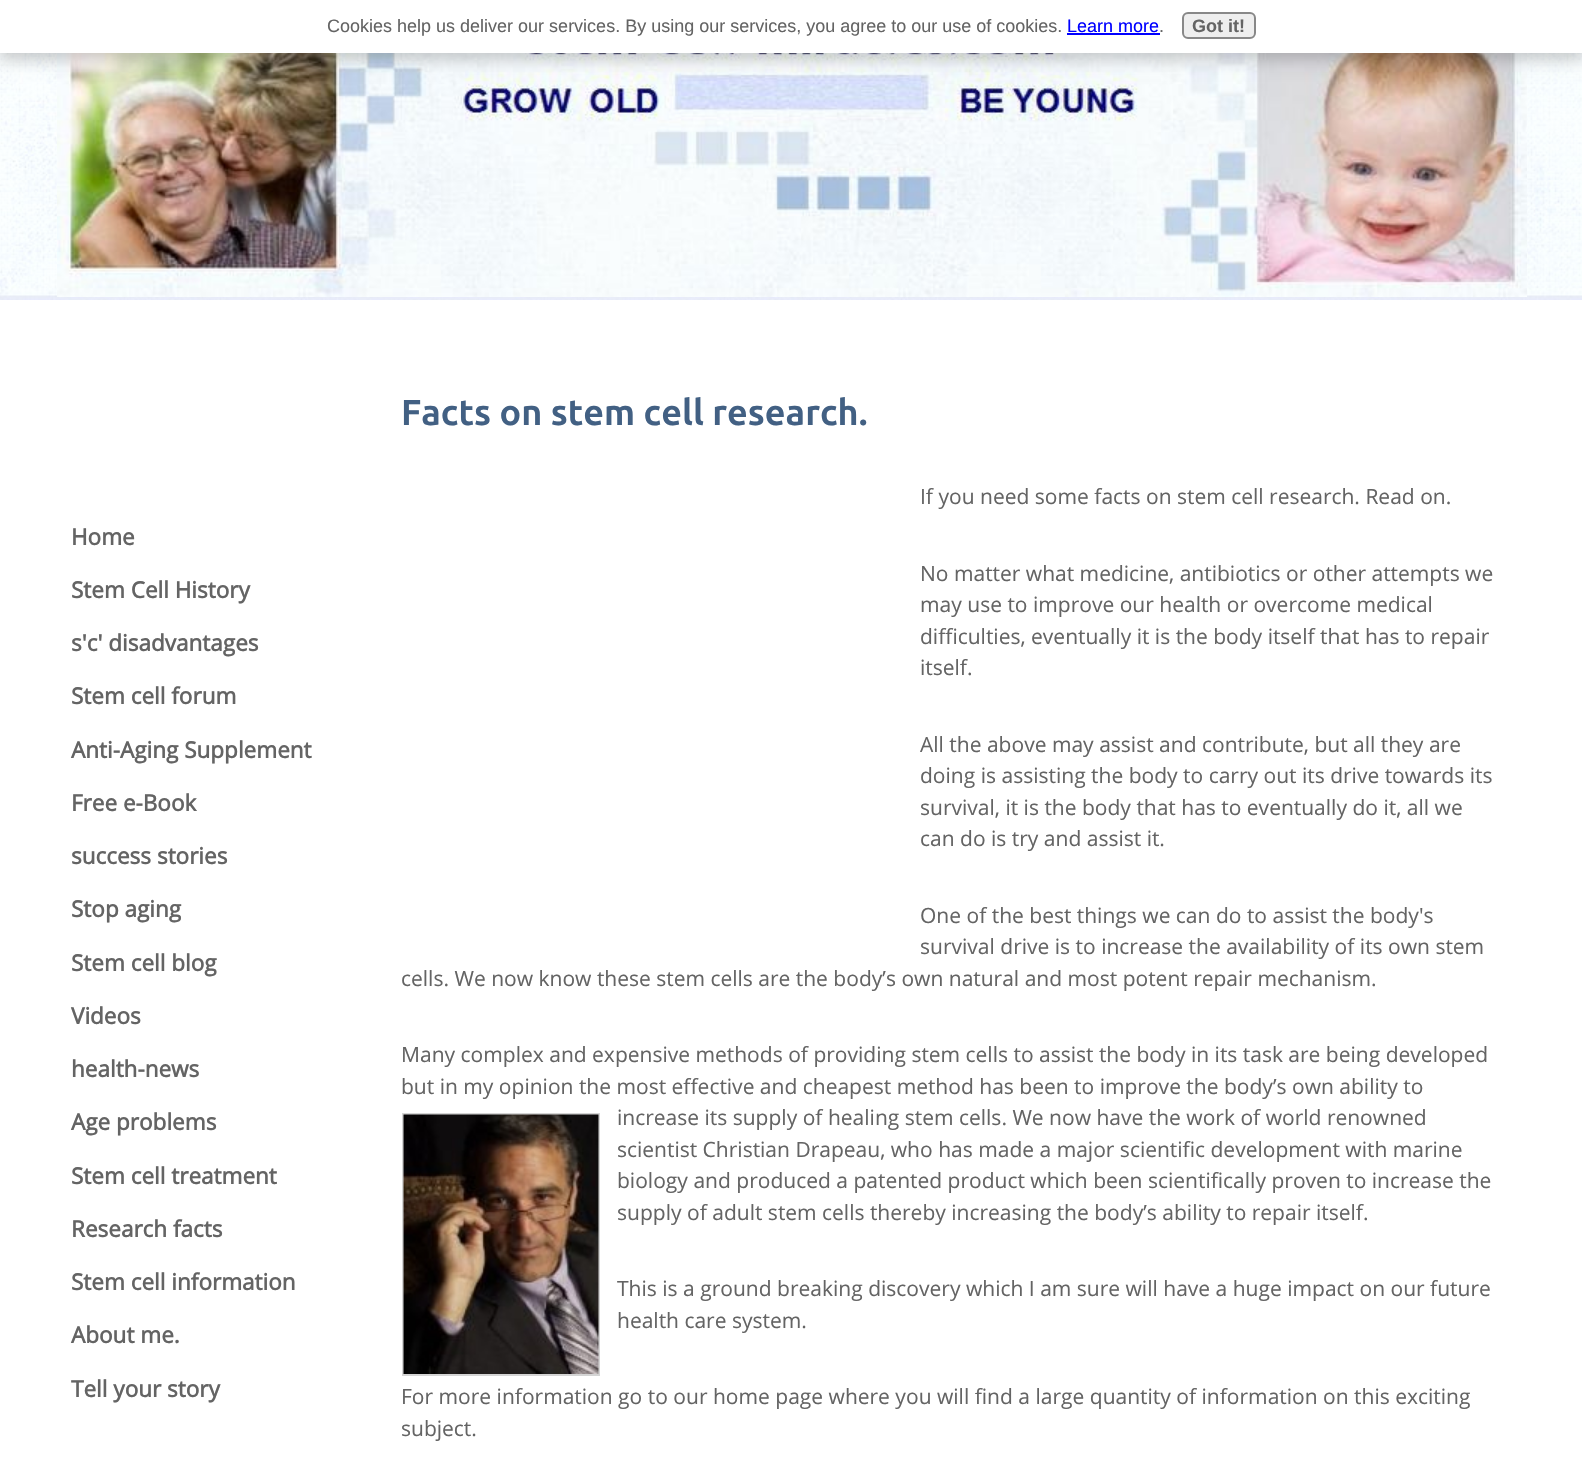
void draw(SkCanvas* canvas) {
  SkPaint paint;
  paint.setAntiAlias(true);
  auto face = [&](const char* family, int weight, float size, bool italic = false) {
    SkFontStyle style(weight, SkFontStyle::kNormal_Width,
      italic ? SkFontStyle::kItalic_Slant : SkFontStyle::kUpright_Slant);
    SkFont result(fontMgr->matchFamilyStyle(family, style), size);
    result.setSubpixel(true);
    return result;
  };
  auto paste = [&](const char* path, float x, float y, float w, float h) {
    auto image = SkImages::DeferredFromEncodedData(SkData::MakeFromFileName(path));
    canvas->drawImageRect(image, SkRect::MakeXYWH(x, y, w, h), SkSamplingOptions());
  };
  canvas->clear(0xffffffff);
  paste("img/1.png", 0, 53, 1582, 247);
  paste("img/2.png", 57, 53, 1470, 244);
  paint.setColor(0x33000000);
  paint.setMaskFilter(SkMaskFilter::MakeBlur(kNormal_SkBlurStyle, 7.5f));
  canvas->drawRect(SkRect::MakeXYWH(-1, 5, 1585, 55), paint);
  paint.setMaskFilter(nullptr);
  paint.setColor(0xffffffff);
  canvas->drawRect(SkRect::MakeXYWH(0, 0, 1582, 53), paint);
  paint.setColor(0xff0000ff);
  canvas->drawRect(SkRect::MakeXYWH(1067, 33, 93, 2), paint);
  paint.setColor(0xffeeeeee);
  canvas->drawRoundRect(SkRect::MakeXYWH(1183, 13, 72, 25), 5, 5, paint);
  paint.setStroke(true);
  paint.setStrokeWidth(2);
  paint.setColor(0xff888888);
  canvas->drawRoundRect(SkRect::MakeXYWH(1183, 13, 72, 25), 5, 5, paint);
  paint.setColor(0xffd4d4d4);
  canvas->drawRect(SkRect::MakeXYWH(403, 1114, 196, 261), paint);
  paste("img/3.png", 403, 1114, 196, 260);
  auto f0 = face("Liberation Sans", 400, 18);
  paint.setStroke(false);
  paint.setColor(0xff646464);
  canvas->drawString("Cookies help us deliver our services. By using our services, you agree to our use of cookies.", 327, 32, f0, paint);
  paint.setColor(0xff0000ff);
  canvas->drawString("Learn more", 1067, 32, f0, paint);
  paint.setColor(0xff646464);
  canvas->drawString(".", 1159, 32, f0, paint);
  auto f1 = face("Liberation Sans", 700, 18);
  canvas->drawString("Got it!", 1192, 32, f1, paint);
  auto f2 = face("Open Sans", 700, 22.5f);
  {
    const struct { const char* s; float x, y; } items[] = {
      {"Home", 71, 545},
      {"Stem Cell History", 71, 598},
      {"s'c' disadvantages", 71, 651},
      {"Stem cell forum", 71, 704},
      {"Anti-Aging Supplement", 71, 758},
      {"Free e-Book", 71, 811},
      {"success stories", 71, 864},
      {"Stop aging", 71, 917},
      {"Stem cell blog", 71, 971},
      {"Videos", 71, 1024},
      {"health-news", 71, 1077},
      {"Age problems", 71, 1130},
      {"Stem cell treatment", 71, 1184},
      {"Research facts", 71, 1237},
      {"Stem cell information", 71, 1290},
      {"About me.", 71, 1343},
      {"Tell your story", 71, 1397},
    };
    for (auto [s, x, y] : items) {
      canvas->drawString(s, x, y, f2, paint);
    }
  }
  auto f3 = face("Ubuntu", 700, 36);
  paint.setColor(0xff426083);
  canvas->drawString("Facts on stem cell research.", 401, 425, f3, paint);
  auto f4 = face("Open Sans", 400, 21);
  paint.setColor(0xff646464);
  {
    const struct { const char* s; float x, y; } items[] = {
      {"If you need some facts on stem cell research. Read on.", 920, 504},
      {"No matter what medicine, antibiotics or other attempts we", 920, 581},
      {"may use to improve our health or overcome medical", 920, 612},
      {"difficulties, eventually it is the body itself that has to repair", 920, 644},
      {"itself.", 920, 675},
      {"All the above may assist and contribute, but all they are", 920, 752},
      {"doing is assisting the body to carry out its drive towards its", 920, 783},
      {"survival, it is the body that has to eventually do it, all we", 920, 815},
      {"can do is try and assist it.", 920, 846},
      {"One of the best things we can do to assist the body's", 920, 923},
      {"survival drive is to increase the availability of its own stem", 920, 954},
      {"cells. We now know these stem cells are the body’s own natural and most potent repair mechanism.", 401, 986},
      {"Many complex and expensive methods of providing stem cells to assist the body in its task are being developed", 401, 1062},
      {"but in my opinion the most effective and cheapest method has been to improve the body’s own ability to", 401, 1094},
      {"increase its supply of healing stem cells. We now have the work of world renowned", 617, 1125},
      {"scientist Christian Drapeau, who has made a major scientific development with marine", 617, 1157},
      {"biology and produced a patented product which been scientifically proven to increase the", 617, 1188},
      {"supply of adult stem cells thereby increasing the body’s ability to repair itself.", 617, 1220},
      {"This is a ground breaking discovery which I am sure will have a huge impact on our future", 617, 1296},
      {"health care system.", 617, 1328},
      {"For more information go to our home page where you will find a large quantity of information on this exciting", 401, 1404},
      {"subject.", 401, 1436},
    };
    for (auto [s, x, y] : items) {
      canvas->drawString(s, x, y, f4, paint);
    }
  }
}
